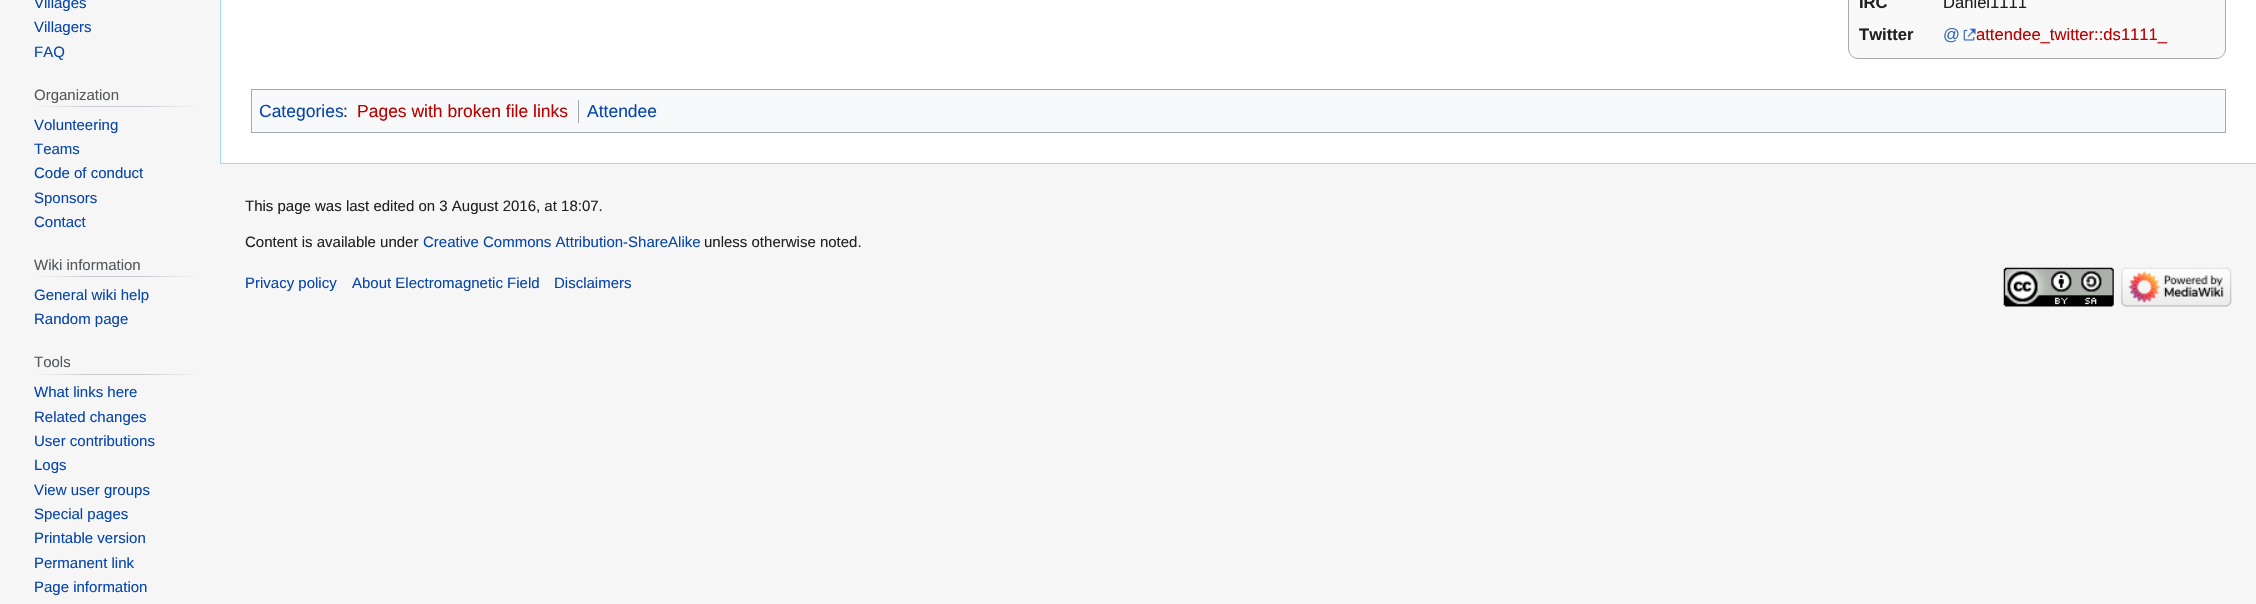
void draw(SkCanvas* canvas) {
  SkPaint paint;
  paint.setAntiAlias(true);
  auto face = [&](const char* family, int weight, float size, bool italic = false) {
    SkFontStyle style(weight, SkFontStyle::kNormal_Width,
      italic ? SkFontStyle::kItalic_Slant : SkFontStyle::kUpright_Slant);
    SkFont result(fontMgr->matchFamilyStyle(family, style), size);
    result.setSubpixel(true);
    return result;
  };
  auto paste = [&](const char* path, float x, float y, float w, float h) {
    auto image = SkImages::DeferredFromEncodedData(SkData::MakeFromFileName(path));
    canvas->drawImageRect(image, SkRect::MakeXYWH(x, y, w, h), SkSamplingOptions());
  };
  canvas->clear(0xfff6f6f6);
  {
    const SkColor colors[] = {0xfff6f6f6, 0xffc8ccd1, 0xffc8ccd1, 0xfff6f6f6};
    const float stops[] = {0, 0.33f, 0.66f, 1};
    const SkPoint ends[] = {{34, 107}, {198, 107}};
    paint.setShader(SkGradientShader::MakeLinear(ends, colors, stops, 4, SkTileMode::kClamp));
    paint.setAlpha(255);
  }
  canvas->drawRect(SkRect::MakeXYWH(34, 106, 164, 1), paint);
  {
    const SkColor colors[] = {0xfff6f6f6, 0xffc8ccd1, 0xffc8ccd1, 0xfff6f6f6};
    const float stops[] = {0, 0.33f, 0.66f, 1};
    const SkPoint ends[] = {{34, 277}, {198, 277}};
    paint.setShader(SkGradientShader::MakeLinear(ends, colors, stops, 4, SkTileMode::kClamp));
    paint.setAlpha(255);
  }
  canvas->drawRect(SkRect::MakeXYWH(34, 276, 164, 1), paint);
  {
    const SkColor colors[] = {0xfff6f6f6, 0xffc8ccd1, 0xffc8ccd1, 0xfff6f6f6};
    const float stops[] = {0, 0.33f, 0.66f, 1};
    const SkPoint ends[] = {{34, 374}, {198, 374}};
    paint.setShader(SkGradientShader::MakeLinear(ends, colors, stops, 4, SkTileMode::kClamp));
    paint.setAlpha(255);
  }
  canvas->drawRect(SkRect::MakeXYWH(34, 374, 164, 1), paint);
  paint.setShader(nullptr);
  {
    const struct { float x, y, w, h; SkColor color; } items[] = {
      {221, 0, 2035, 163, 0xffffffff},
      {220, 163, 2036, 1, 0xffa7d7f9},
      {220, 0, 1, 164, 0xffa7d7f9},
    };
    for (auto [x, y, w, h, color] : items) {
      paint.setColor(color);
      canvas->drawRect(SkRect::MakeXYWH(x, y, w, h), paint);
    }
  }
  paint.setColor(0xfff9f9f9);
  canvas->drawRoundRect(SkRect::MakeXYWH(1848.5f, -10.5f, 377, 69), 9.5f, 9.5f, paint);
  paint.setStroke(true);
  paint.setStrokeWidth(1);
  paint.setColor(0xffaaaaaa);
  canvas->drawRoundRect(SkRect::MakeXYWH(1848.5f, -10.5f, 377, 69), 9.5f, 9.5f, paint);
  paste("img/1.png", 1963, 28, 13, 13);
  paint.setStroke(false);
  paint.setColor(0xfff8f9fa);
  canvas->drawRect(SkRect::MakeXYWH(251.5f, 89.5f, 1974, 43), paint);
  paint.setStroke(true);
  paint.setColor(0xffa2a9b1);
  canvas->drawRect(SkRect::MakeXYWH(251.5f, 89.5f, 1974, 43), paint);
  paint.setStroke(false);
  canvas->drawRect(SkRect::MakeXYWH(578, 100, 1, 23), paint);
  paste("img/2.png", 2003, 267, 111, 40);
  paste("img/3.png", 2121, 267, 111, 40);
  auto f0 = face("Liberation Sans", 400, 15);
  paint.setColor(0xff0645ad);
  {
    const struct { const char* s; float x, y; } items[] = {
      {"Villages", 34, 8},
      {"Villagers", 34, 32},
      {"FAQ", 34, 57},
    };
    for (auto [s, x, y] : items) {
      canvas->drawString(s, x, y, f0, paint);
    }
  }
  paint.setColor(0xff54595d);
  canvas->drawString("Organization", 34, 100, f0, paint);
  paint.setColor(0xff0645ad);
  {
    const struct { const char* s; float x, y; } items[] = {
      {"Volunteering", 34, 130},
      {"Teams", 34, 154},
      {"Code of conduct", 34, 178},
      {"Sponsors", 34, 203},
      {"Contact", 34, 227},
    };
    for (auto [s, x, y] : items) {
      canvas->drawString(s, x, y, f0, paint);
    }
  }
  paint.setColor(0xff54595d);
  canvas->drawString("Wiki information", 34, 270, f0, paint);
  paint.setColor(0xff0645ad);
  canvas->drawString("General wiki help", 34, 300, f0, paint);
  canvas->drawString("Random page", 34, 324, f0, paint);
  paint.setColor(0xff54595d);
  canvas->drawString("Tools", 34, 367, f0, paint);
  paint.setColor(0xff0645ad);
  {
    const struct { const char* s; float x, y; } items[] = {
      {"What links here", 34, 397},
      {"Related changes", 34, 422},
      {"User contributions", 34, 446},
      {"Logs", 34, 470},
      {"View user groups", 34, 495},
      {"Special pages", 34, 519},
      {"Printable version", 34, 543},
      {"Permanent link", 34, 568},
      {"Page information", 34, 592},
    };
    for (auto [s, x, y] : items) {
      canvas->drawString(s, x, y, f0, paint);
    }
  }
  auto f1 = face("Liberation Sans", 700, 16.6f);
  paint.setColor(0xff202122);
  canvas->drawString("IRC", 1859, 8, f1, paint);
  auto f2 = face("Liberation Sans", 400, 16.6f);
  canvas->drawString("Daniel1111", 1943, 8, f2, paint);
  canvas->drawString("Twitter", 1859, 40, f1, paint);
  paint.setColor(0xff3366bb);
  canvas->drawString("@", 1943, 40, f2, paint);
  paint.setColor(0xffba0000);
  canvas->drawString("attendee_twitter::ds1111_", 1976, 40, f2, paint);
  auto f3 = face("Liberation Sans", 400, 17.5f);
  paint.setColor(0xff0645ad);
  canvas->drawString("Categories", 259, 117, f3, paint);
  paint.setColor(0xff202122);
  canvas->drawString(":", 343, 117, f3, paint);
  paint.setColor(0xffba0000);
  canvas->drawString("Pages with broken file links", 357, 117, f3, paint);
  paint.setColor(0xff0645ad);
  canvas->drawString("Attendee", 587, 117, f3, paint);
  paint.setColor(0xff202122);
  canvas->drawString("This page was last edited on 3 August 2016, at 18:07.", 245, 211, f0, paint);
  canvas->drawString("Content is available under", 245, 247, f0, paint);
  paint.setColor(0xff0645ad);
  canvas->drawString("Creative Commons Attribution-ShareAlike", 423, 247, f0, paint);
  paint.setColor(0xff202122);
  canvas->drawString("unless otherwise noted.", 704, 247, f0, paint);
  paint.setColor(0xff0645ad);
  {
    const struct { const char* s; float x, y; } items[] = {
      {"Privacy policy", 245, 288},
      {"About Electromagnetic Field", 352, 288},
      {"Disclaimers", 554, 288},
    };
    for (auto [s, x, y] : items) {
      canvas->drawString(s, x, y, f0, paint);
    }
  }
}
